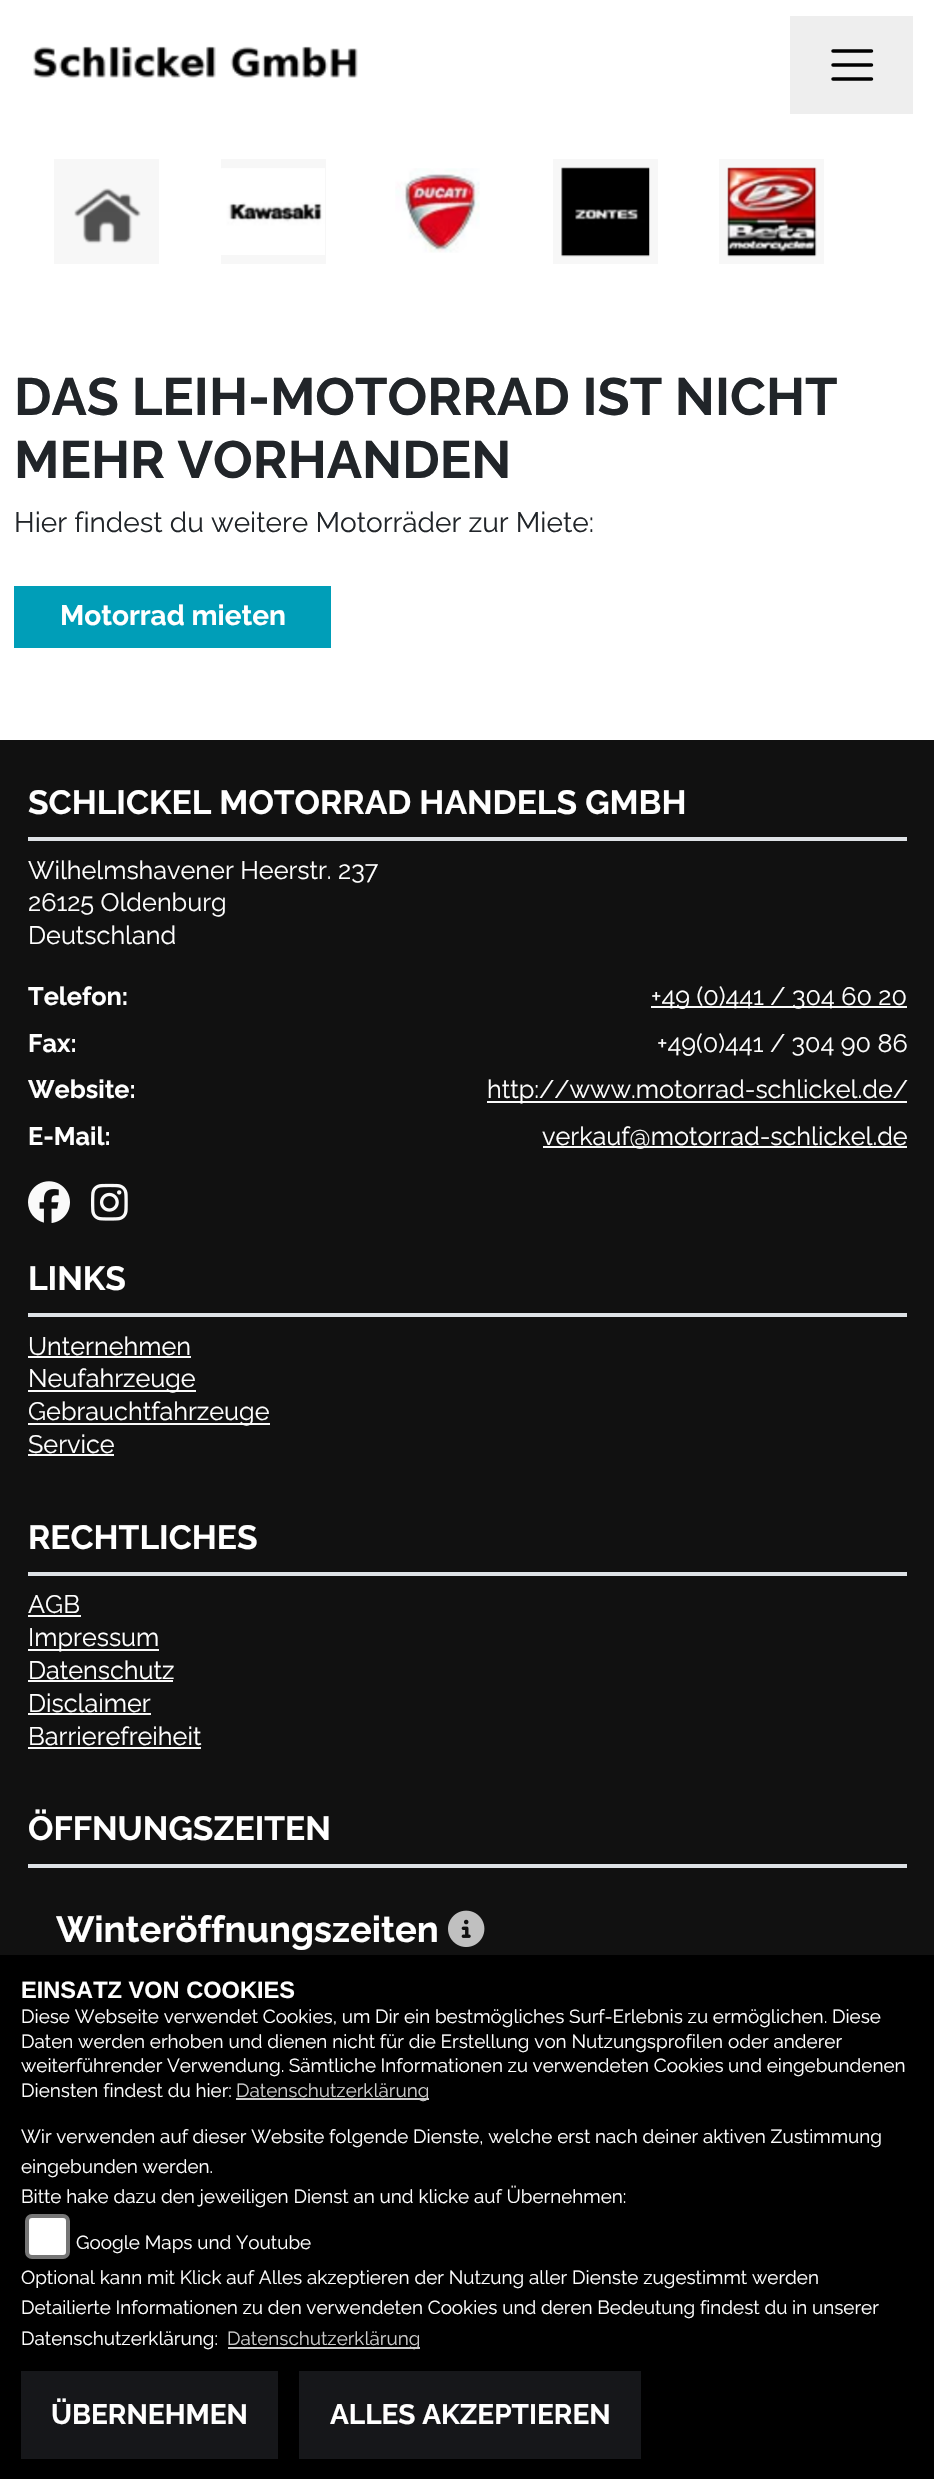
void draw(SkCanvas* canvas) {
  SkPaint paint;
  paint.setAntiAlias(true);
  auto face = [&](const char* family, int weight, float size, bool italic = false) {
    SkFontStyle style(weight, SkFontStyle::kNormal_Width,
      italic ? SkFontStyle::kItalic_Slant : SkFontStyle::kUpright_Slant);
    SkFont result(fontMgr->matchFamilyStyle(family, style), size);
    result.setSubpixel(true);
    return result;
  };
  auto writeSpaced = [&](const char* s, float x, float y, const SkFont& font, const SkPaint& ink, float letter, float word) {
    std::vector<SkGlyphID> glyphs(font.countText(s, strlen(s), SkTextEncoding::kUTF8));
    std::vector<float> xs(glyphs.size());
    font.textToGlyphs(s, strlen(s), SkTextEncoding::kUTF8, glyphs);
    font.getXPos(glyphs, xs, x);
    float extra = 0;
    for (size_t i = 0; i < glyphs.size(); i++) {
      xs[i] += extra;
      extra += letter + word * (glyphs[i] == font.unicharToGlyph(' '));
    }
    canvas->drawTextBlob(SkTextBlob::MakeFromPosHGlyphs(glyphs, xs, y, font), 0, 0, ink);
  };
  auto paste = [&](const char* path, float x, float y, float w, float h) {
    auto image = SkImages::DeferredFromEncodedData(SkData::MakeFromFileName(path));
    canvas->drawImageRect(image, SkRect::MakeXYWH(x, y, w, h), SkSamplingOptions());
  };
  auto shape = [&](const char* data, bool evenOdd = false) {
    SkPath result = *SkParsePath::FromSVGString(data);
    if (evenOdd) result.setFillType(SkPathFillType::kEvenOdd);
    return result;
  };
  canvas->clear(0xffffffff);
  paste("img/1.png", 33, 46, 325, 32);
  paint.setColor(0xffeeeeee);
  canvas->drawRect(SkRect::MakeXYWH(790, 16, 123, 98), paint);
  paint.setStroke(true);
  paint.setStrokeWidth(3.5f);
  paint.setStrokeCap(SkPaint::kRound_Cap);
  paint.setColor(0xff000000);
  canvas->drawPath(shape("M833 51H871.5M833 65H871.5M833 79H871.5"), paint);
  paint.setStroke(false);
  paint.setColor(0xfff7f7f7);
  canvas->drawRect(SkRect::MakeXYWH(54, 159, 105, 105), paint);
  paste("img/2.png", 74, 188, 67, 56);
  canvas->drawRect(SkRect::MakeXYWH(221, 159, 105, 105), paint);
  paste("img/3.png", 221, 168, 104, 87);
  paste("img/4.png", 395, 168, 85, 85);
  canvas->drawRect(SkRect::MakeXYWH(553, 159, 105, 105), paint);
  paste("img/5.png", 561, 167, 89, 90);
  canvas->drawRect(SkRect::MakeXYWH(719, 159, 105, 105), paint);
  paste("img/6.png", 727, 167, 90, 90);
  {
    const struct { float x, y, w, h; SkColor color; } items[] = {
      {14, 586, 317, 62, 0xff009eb8},
      {0, 740, 934, 1215, 0xff111111},
      {28, 837, 879, 4, 0xffdee2e6},
      {651, 1006, 256, 2, 0xfffafafa},
      {487, 1101, 420, 2, 0xfffafafa},
      {543, 1146, 364, 2, 0xfffafafa},
    };
    for (auto [x, y, w, h, color] : items) {
      paint.setColor(color);
      canvas->drawRect(SkRect::MakeXYWH(x, y, w, h), paint);
    }
  }
  paste("img/7.png", 28, 1181, 42, 42);
  paste("img/8.png", 91, 1183, 37, 38);
  {
    const struct { float x, y, w, h; SkColor color; } items[] = {
      {28, 1313, 879, 4, 0xffdee2e6},
      {28, 1356, 163, 2, 0xfffafafa},
      {28, 1390, 168, 2, 0xfffafafa},
      {28, 1423, 242, 2, 0xfffafafa},
      {28, 1454, 86, 2, 0xfffafafa},
      {28, 1572, 879, 4, 0xffdee2e6},
      {28, 1615, 53, 2, 0xfffafafa},
      {28, 1649, 131, 2, 0xfffafafa},
      {28, 1680, 145, 2, 0xfffafafa},
      {28, 1713, 123, 2, 0xfffafafa},
      {28, 1747, 173, 2, 0xfffafafa},
      {28, 1864, 879, 4, 0xffdee2e6},
    };
    for (auto [x, y, w, h, color] : items) {
      paint.setColor(color);
      canvas->drawRect(SkRect::MakeXYWH(x, y, w, h), paint);
    }
  }
  paste("img/9.png", 448, 1910, 37, 37);
  paint.setColor(0xff000000);
  canvas->drawRect(SkRect::MakeXYWH(0, 1955, 934, 524), paint);
  paint.setColor(0xffcccccc);
  canvas->drawRect(SkRect::MakeXYWH(236, 2098, 193, 2), paint);
  paint.setColor(0xffffffff);
  canvas->drawRoundRect(SkRect::MakeXYWH(27, 2216, 41, 41), 5, 5, paint);
  paint.setStroke(true);
  paint.setStrokeWidth(4);
  paint.setStrokeCap(SkPaint::kButt_Cap);
  paint.setColor(0xff767676);
  canvas->drawRoundRect(SkRect::MakeXYWH(27, 2216, 41, 41), 5, 5, paint);
  paint.setStroke(false);
  {
    const struct { float x, y, w, h; SkColor color; } items[] = {
      {228, 2347, 192, 2, 0xffcccccc},
      {21, 2371, 257, 88, 0xff16171a},
      {299, 2371, 342, 88, 0xff16171a},
    };
    for (auto [x, y, w, h, color] : items) {
      paint.setColor(color);
      canvas->drawRect(SkRect::MakeXYWH(x, y, w, h), paint);
    }
  }
  auto f0 = face("Raleway", 700, 52.5f);
  paint.setColor(0xff212529);
  canvas->drawString("DAS LEIH-MOTORRAD IST NICHT", 14, 415, f0, paint);
  canvas->drawString("MEHR VORHANDEN", 14, 478, f0, paint);
  auto f1 = face("Raleway", 400, 28);
  canvas->drawString("Hier findest du weitere Motorräder zur Miete:", 14, 532, f1, paint);
  auto f2 = face("Raleway", 700, 28);
  paint.setColor(0xffffffff);
  canvas->drawString("Motorrad mieten", 60, 625, f2, paint);
  auto f3 = face("Raleway", 700, 33.6f);
  canvas->drawString("SCHLICKEL MOTORRAD HANDELS GMBH", 28, 814, f3, paint);
  auto f4 = face("Raleway", 400, 25.25f);
  {
    const struct { const char* s; float x, y; } items[] = {
      {"Wilhelmshavener Heerstr. 237", 28, 879},
      {"26125 Oldenburg", 28, 911},
      {"Deutschland", 28, 944},
    };
    for (auto [s, x, y] : items) {
      canvas->drawString(s, x, y, f4, paint);
    }
  }
  auto f5 = face("Raleway", 700, 25.25f);
  canvas->drawString("Telefon:", 28, 1005, f5, paint);
  canvas->drawString("+49 (0)441 / 304 60 20", 651, 1005, f4, paint);
  canvas->drawString("Fax:", 28, 1052, f5, paint);
  canvas->drawString("+49(0)441 / 304 90 86", 657, 1052, f4, paint);
  canvas->drawString("Website:", 28, 1098, f5, paint);
  canvas->drawString("http://www.motorrad-schlickel.de/", 487, 1098, f4, paint);
  canvas->drawString("E-Mail:", 28, 1145, f5, paint);
  canvas->drawString("verkauf@motorrad-schlickel.de", 542, 1145, f4, paint);
  canvas->drawString("LINKS", 28, 1290, f3, paint);
  {
    const struct { const char* s; float x, y; } items[] = {
      {"Unternehmen", 28, 1355},
      {"Neufahrzeuge", 28, 1387},
      {"Gebrauchtfahrzeuge", 28, 1420},
      {"Service", 28, 1453},
    };
    for (auto [s, x, y] : items) {
      canvas->drawString(s, x, y, f4, paint);
    }
  }
  canvas->drawString("RECHTLICHES", 28, 1549, f3, paint);
  {
    const struct { const char* s; float x, y; } items[] = {
      {"AGB", 28, 1613},
      {"Impressum", 28, 1646},
      {"Datenschutz", 28, 1679},
      {"Disclaimer", 28, 1712},
      {"Barrierefreiheit", 28, 1745},
    };
    for (auto [s, x, y] : items) {
      canvas->drawString(s, x, y, f4, paint);
    }
  }
  canvas->drawString("ÖFFNUNGSZEITEN", 28, 1840, f3, paint);
  auto f6 = face("Raleway", 700, 36.4f);
  canvas->drawString("Winteröffnungszeiten", 56, 1942, f6, paint);
  auto f7 = face("Liberation Sans", 700, 23.6f);
  canvas->drawString("EINSATZ VON COOKIES", 21, 1998, f7, paint);
  auto f8 = face("Raleway", 400, 18.9f);
  writeSpaced("Diese Webseite verwendet Cookies, um Dir ein bestmögliches Surf-Erlebnis zu ermöglichen. Diese", 21, 2023, f8, paint, 0, -0.1f);
  canvas->drawString("Daten werden erhoben und dienen nicht für die Erstellung von Nutzungsprofilen oder anderer", 21, 2048, f8, paint);
  writeSpaced("weiterführender Verwendung. Sämtliche Informationen zu verwendeten Cookies und eingebundenen", 21, 2072, f8, paint, 0, -0.25f);
  canvas->drawString("Diensten findest du hier:", 21, 2097, f8, paint);
  paint.setColor(0xffcccccc);
  canvas->drawString("Datenschutzerklärung", 236, 2097, f8, paint);
  paint.setColor(0xffffffff);
  writeSpaced("Wir verwenden auf dieser Website folgende Dienste, welche erst nach deiner aktiven Zustimmung", 21, 2143, f8, paint, 0, -0.1f);
  {
    const struct { const char* s; float x, y; } items[] = {
      {"eingebunden werden.", 21, 2173},
      {"Bitte hake dazu den jeweiligen Dienst an und klicke auf Übernehmen:", 21, 2203},
      {"Google Maps und Youtube", 76, 2249},
      {"Optional kann mit Klick auf Alles akzeptieren der Nutzung aller Dienste zugestimmt werden", 21, 2284},
    };
    for (auto [s, x, y] : items) {
      canvas->drawString(s, x, y, f8, paint);
    }
  }
  writeSpaced("Detailierte Informationen zu den verwendeten Cookies und deren Bedeutung findest du in unserer", 21, 2314, f8, paint, 0, -0.1f);
  canvas->drawString("Datenschutzerklärung:", 21, 2345, f8, paint);
  paint.setColor(0xffcccccc);
  canvas->drawString("Datenschutzerklärung", 227, 2345, f8, paint);
  paint.setColor(0xffffffff);
  canvas->drawString("ÜBERNEHMEN", 51, 2424, f2, paint);
  canvas->drawString("ALLES AKZEPTIEREN", 330, 2424, f2, paint);
}
